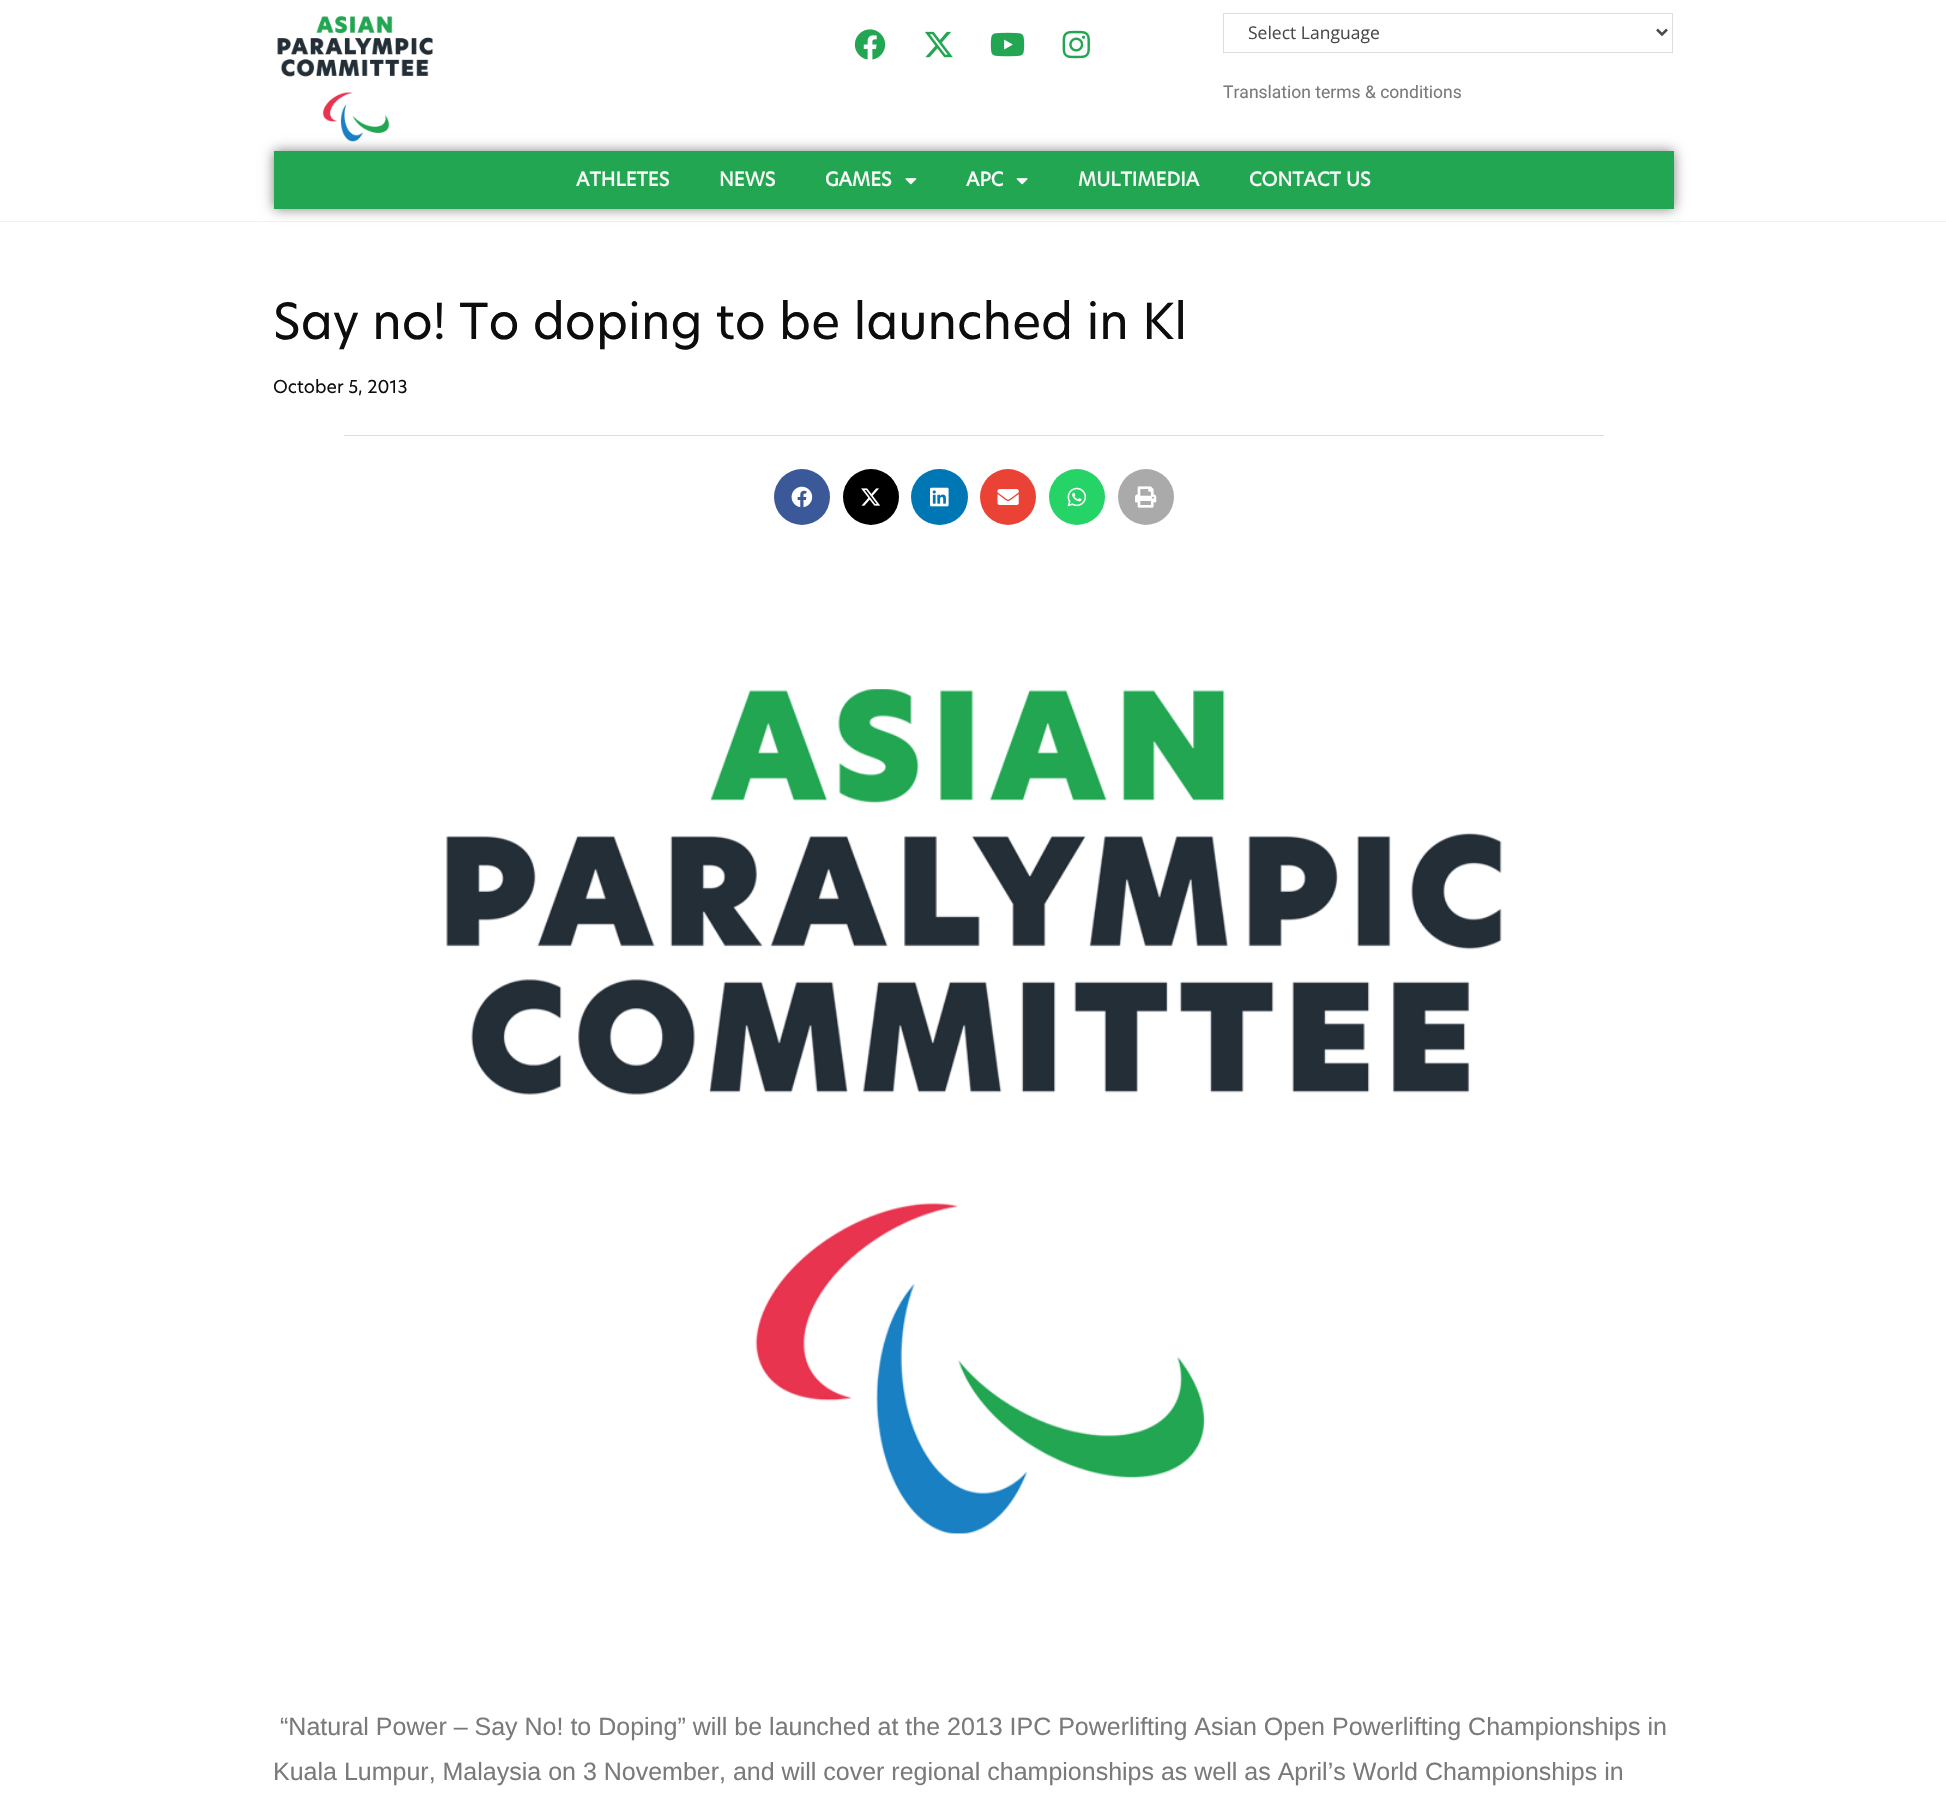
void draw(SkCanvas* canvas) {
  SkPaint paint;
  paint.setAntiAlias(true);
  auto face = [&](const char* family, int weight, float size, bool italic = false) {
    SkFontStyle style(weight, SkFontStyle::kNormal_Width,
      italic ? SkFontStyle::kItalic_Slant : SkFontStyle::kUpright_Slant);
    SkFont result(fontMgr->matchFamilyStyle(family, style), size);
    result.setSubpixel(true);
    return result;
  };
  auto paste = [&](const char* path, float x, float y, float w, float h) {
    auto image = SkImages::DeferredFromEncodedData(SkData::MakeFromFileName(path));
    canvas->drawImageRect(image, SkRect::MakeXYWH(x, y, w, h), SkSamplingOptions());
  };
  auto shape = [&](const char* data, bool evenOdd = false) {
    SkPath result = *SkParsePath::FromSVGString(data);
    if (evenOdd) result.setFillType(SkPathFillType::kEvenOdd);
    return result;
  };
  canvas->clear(0xffffffff);
  paint.setColor(0xfff1f1f1);
  canvas->drawRect(SkRect::MakeXYWH(0, 221, 1946, 1), paint);
  paste("img/1.png", 277, 16, 156, 126);
  paste("img/2.png", 854, 29, 32, 31);
  paste("img/3.png", 925, 31, 28, 27);
  paste("img/4.png", 990, 32, 35, 25);
  paste("img/5.png", 1062, 30, 28, 29);
  paint.setStroke(true);
  paint.setStrokeWidth(1);
  paint.setColor(0xffdddddd);
  canvas->drawRect(SkRect::MakeXYWH(1223.5f, 13.5f, 449, 39), paint);
  paint.setStrokeWidth(2.5f);
  paint.setColor(0xff4a4a4a);
  canvas->drawPath(shape("M1657 29.5L1662 34.5L1667 29.5"), paint);
  paint.setStroke(false);
  paint.setColor(0x80000000);
  paint.setMaskFilter(SkMaskFilter::MakeBlur(kNormal_SkBlurStyle, 6));
  canvas->drawRect(SkRect::MakeXYWH(274, 151, 1400, 58), paint);
  paint.setMaskFilter(nullptr);
  paint.setColor(0xff22a652);
  canvas->drawRect(SkRect::MakeXYWH(274, 151, 1400, 58), paint);
  paste("img/6.png", 905, 178, 12, 7);
  paste("img/7.png", 1016, 178, 12, 7);
  paint.setColor(0xffdddddd);
  canvas->drawRect(SkRect::MakeXYWH(344, 435, 1260, 1), paint);
  paint.setColor(0xff3b5998);
  canvas->drawCircle(802, 497, 28, paint);
  paste("img/8.png", 791, 486, 22, 22);
  paint.setColor(0xff000000);
  canvas->drawCircle(871, 497, 28, paint);
  paste("img/9.png", 861, 488, 20, 18);
  paint.setColor(0xff0077b5);
  canvas->drawRoundRect(SkRect::MakeXYWH(911, 469, 57, 56), 28, 28, paint);
  paste("img/10.png", 930, 487, 19, 20);
  paint.setColor(0xffea4335);
  canvas->drawCircle(1008, 497, 28, paint);
  paste("img/11.png", 997, 489, 22, 16);
  paint.setColor(0xff25d366);
  canvas->drawCircle(1077, 497, 28, paint);
  paste("img/12.png", 1067, 487, 20, 20);
  paint.setColor(0xffaaaaaa);
  canvas->drawCircle(1146, 497, 28, paint);
  paste("img/13.png", 1135, 486, 22, 22);
  paste("img/14.png", 446, 689, 1056, 845);
  auto f0 = face("Open Sans", 400, 17.5f);
  paint.setColor(0xff4a4a4a);
  canvas->drawString("Select Language", 1248, 39, f0, paint);
  auto f1 = face("Roboto", 400, 17.5f);
  paint.setColor(0xff7a7a7a);
  canvas->drawString("Translation terms & conditions", 1223, 98, f1, paint);
  auto f2 = face("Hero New", 700, 18.75f);
  paint.setColor(0xfff9f9f9);
  {
    const struct { const char* s; float x, y; } items[] = {
      {"ATHLETES", 576, 186},
      {"NEWS", 719, 186},
      {"GAMES", 825, 186},
      {"APC", 966, 186},
      {"MULTIMEDIA", 1078, 186},
      {"CONTACT US", 1249, 186},
    };
    for (auto [s, x, y] : items) {
      canvas->drawString(s, x, y, f2, paint);
    }
  }
  auto f3 = face("Hero New", 400, 48.75f);
  paint.setColor(0xff0d0d0e);
  canvas->drawString("Say no! To doping to be launched in Kl", 273, 339, f3, paint);
  auto f4 = face("Hero New", 400, 17.5f);
  canvas->drawString("October 5, 2013", 273, 393, f4, paint);
  auto f5 = face("Liberation Sans", 400, 25);
  paint.setColor(0xff7a7a7a);
  canvas->drawString("“Natural Power – Say No! to Doping” will be launched at the 2013 IPC Powerlifting Asian Open Powerlifting Championships in", 280, 1735, f5, paint);
  canvas->drawString("Kuala Lumpur, Malaysia on 3 November, and will cover regional championships as well as April’s World Championships in", 273, 1780, f5, paint);
}
